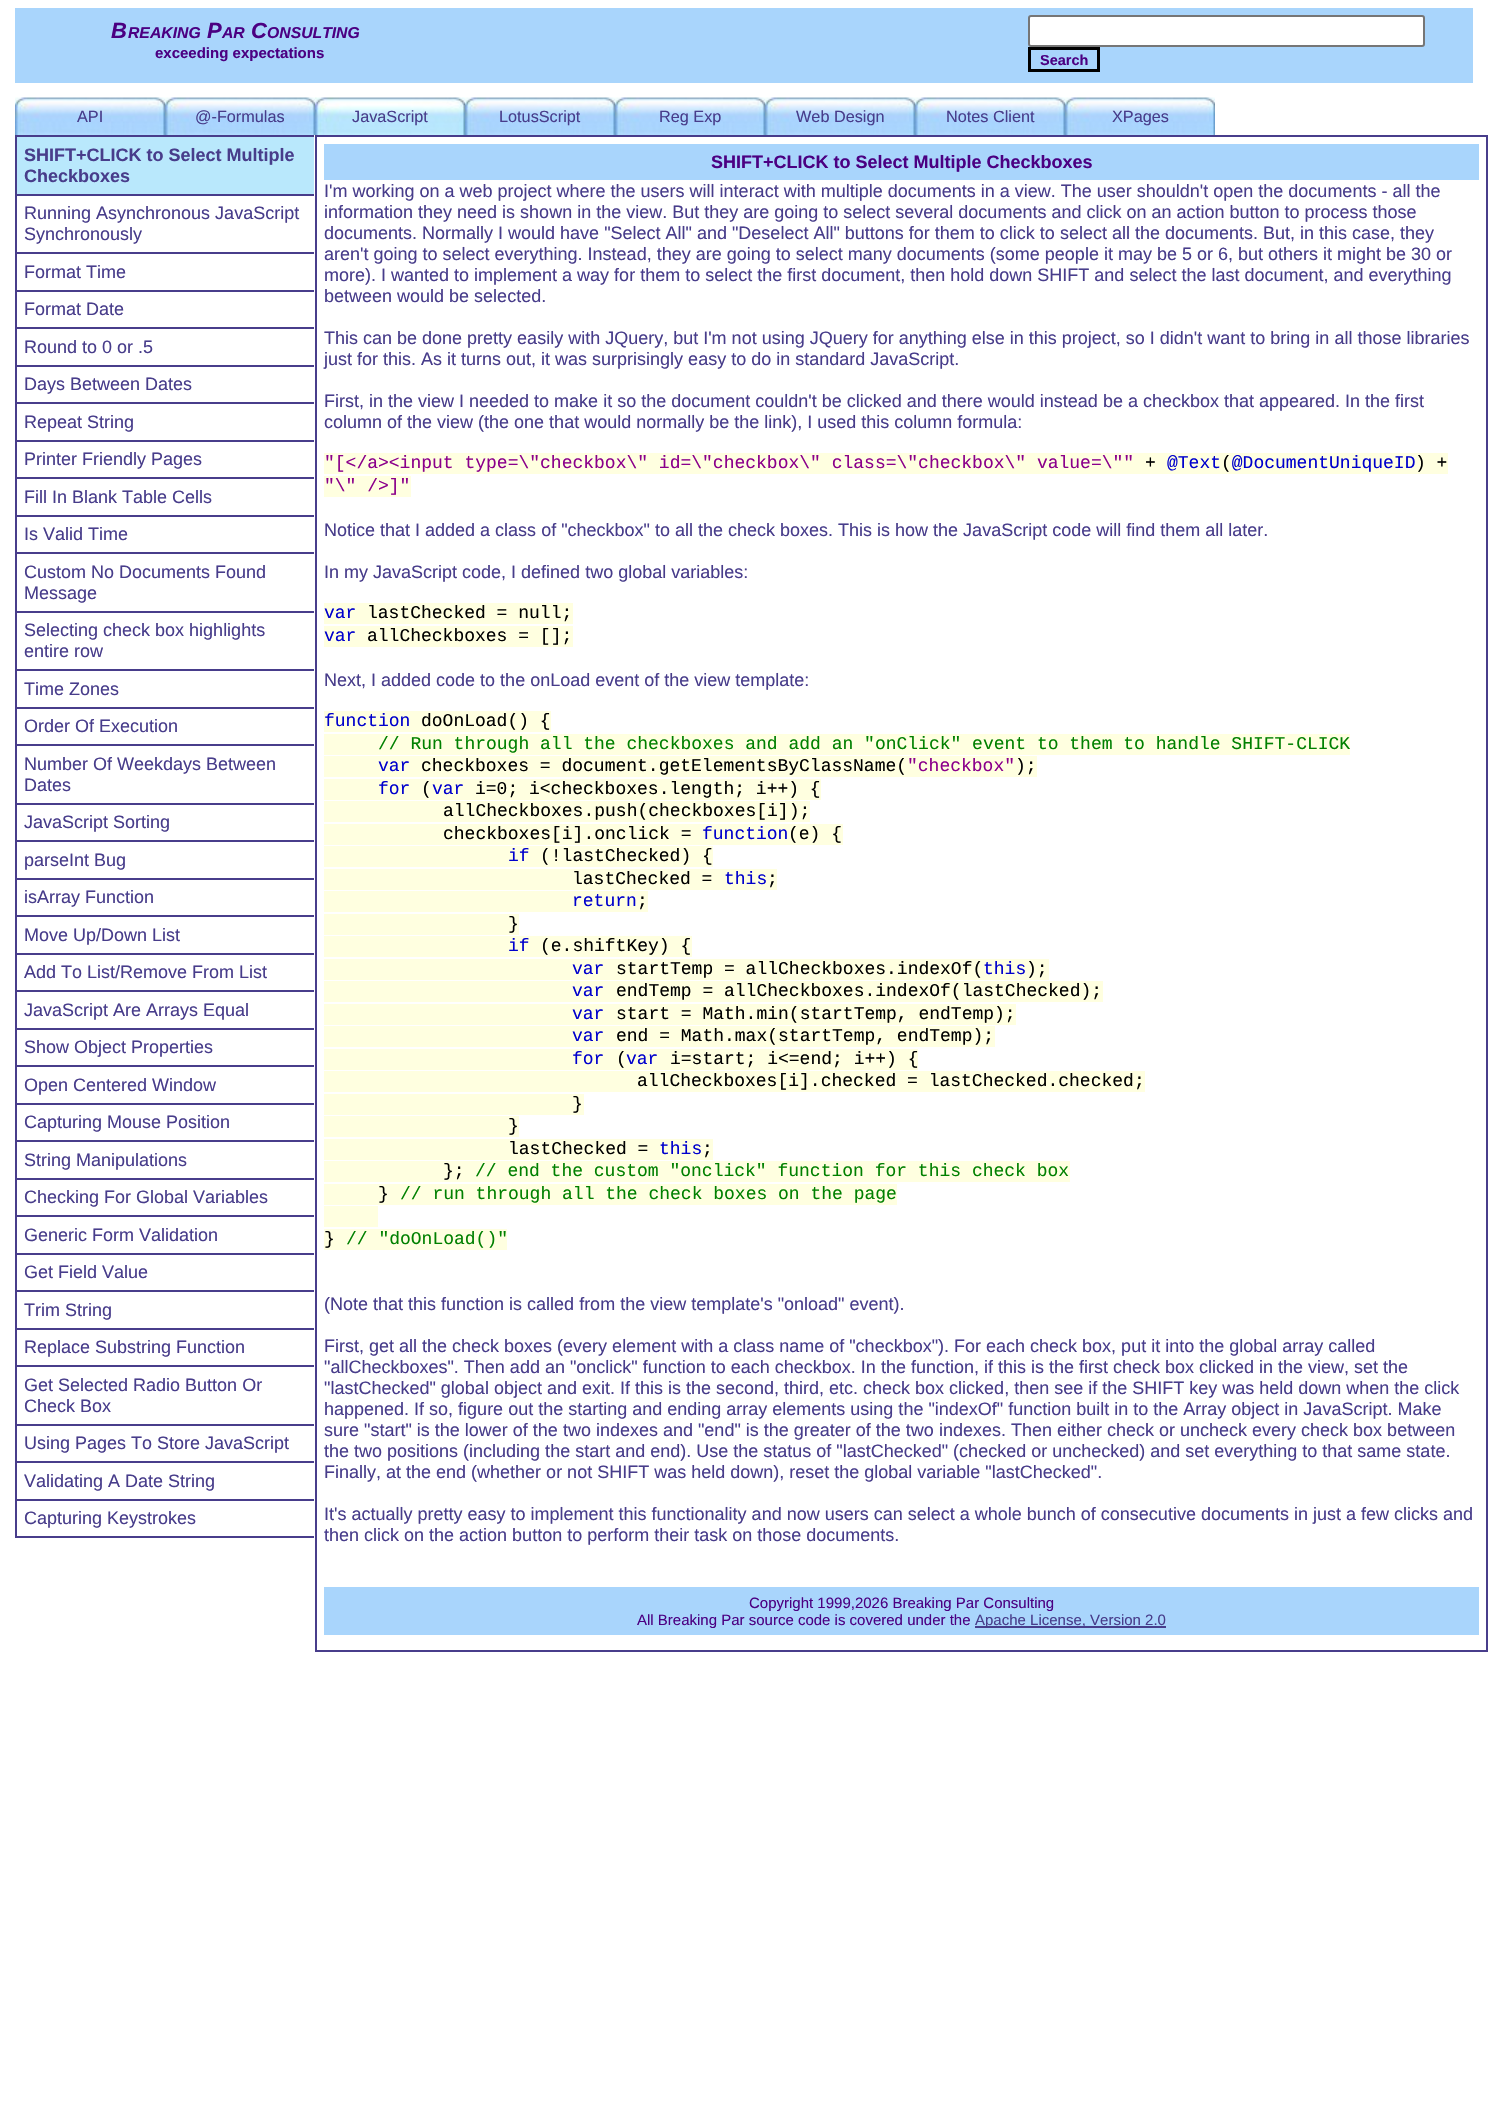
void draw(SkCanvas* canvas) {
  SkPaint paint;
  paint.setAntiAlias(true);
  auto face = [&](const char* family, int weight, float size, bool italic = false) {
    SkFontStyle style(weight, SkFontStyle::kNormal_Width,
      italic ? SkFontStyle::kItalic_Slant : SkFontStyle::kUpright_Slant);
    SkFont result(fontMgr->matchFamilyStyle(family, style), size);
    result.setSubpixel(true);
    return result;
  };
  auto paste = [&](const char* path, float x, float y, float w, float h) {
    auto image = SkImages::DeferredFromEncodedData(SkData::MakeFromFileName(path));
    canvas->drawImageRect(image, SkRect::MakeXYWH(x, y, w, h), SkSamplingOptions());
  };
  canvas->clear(0xffffffff);
  paint.setColor(0xffa9d5fc);
  canvas->drawRect(SkRect::MakeXYWH(15, 8, 1458, 75), paint);
  paint.setColor(0xffffffff);
  canvas->drawRoundRect(SkRect::MakeXYWH(1029, 16, 395, 30), 2, 2, paint);
  paint.setStroke(true);
  paint.setStrokeWidth(2);
  paint.setColor(0xff767676);
  canvas->drawRoundRect(SkRect::MakeXYWH(1029, 16, 395, 30), 2, 2, paint);
  paint.setStrokeWidth(3);
  paint.setColor(0xff000000);
  canvas->drawRect(SkRect::MakeXYWH(1029.5f, 48.5f, 69, 22), paint);
  paste("img/1.png", 15, 97, 150, 38);
  paste("img/1.png", 165, 97, 150, 38);
  paste("img/2.png", 315, 97, 150, 38);
  paste("img/3.png", 465, 97, 150, 38);
  paste("img/1.png", 615, 97, 150, 38);
  paste("img/1.png", 765, 97, 150, 38);
  paste("img/1.png", 915, 97, 150, 38);
  paste("img/4.png", 1065, 97, 150, 38);
  paint.setStroke(false);
  {
    const struct { float x, y, w, h; SkColor color; } items[] = {
      {15, 135, 299, 2, 0xff483d8b},
      {15, 137, 2, 1401, 0xff483d8b},
      {17, 137, 297, 57, 0xffb9e8fc},
      {17, 194, 297, 2, 0xff483d8b},
      {17, 252, 297, 2, 0xff483d8b},
      {17, 290, 297, 2, 0xff483d8b},
      {17, 327, 297, 2, 0xff483d8b},
      {17, 365, 297, 2, 0xff483d8b},
      {17, 402, 297, 2, 0xff483d8b},
      {17, 440, 297, 2, 0xff483d8b},
      {17, 477, 297, 2, 0xff483d8b},
      {17, 515, 297, 2, 0xff483d8b},
      {17, 552, 297, 2, 0xff483d8b},
      {17, 611, 297, 2, 0xff483d8b},
      {17, 669, 297, 2, 0xff483d8b},
      {17, 707, 297, 2, 0xff483d8b},
      {17, 744, 297, 2, 0xff483d8b},
      {17, 803, 297, 2, 0xff483d8b},
      {17, 840, 297, 2, 0xff483d8b},
      {17, 878, 297, 2, 0xff483d8b},
      {17, 915, 297, 2, 0xff483d8b},
      {17, 953, 297, 2, 0xff483d8b},
      {17, 990, 297, 2, 0xff483d8b},
      {17, 1028, 297, 2, 0xff483d8b},
      {17, 1065, 297, 2, 0xff483d8b},
      {17, 1103, 297, 2, 0xff483d8b},
      {17, 1140, 297, 2, 0xff483d8b},
      {17, 1178, 297, 2, 0xff483d8b},
      {17, 1215, 297, 2, 0xff483d8b},
      {17, 1253, 297, 2, 0xff483d8b},
      {17, 1290, 297, 2, 0xff483d8b},
      {17, 1328, 297, 2, 0xff483d8b},
      {17, 1365, 297, 2, 0xff483d8b},
      {17, 1424, 297, 2, 0xff483d8b},
      {17, 1461, 297, 2, 0xff483d8b},
      {17, 1499, 297, 2, 0xff483d8b},
      {17, 1536, 297, 2, 0xff483d8b},
    };
    for (auto [x, y, w, h, color] : items) {
      paint.setColor(color);
      canvas->drawRect(SkRect::MakeXYWH(x, y, w, h), paint);
    }
  }
  paint.setStroke(true);
  paint.setStrokeWidth(2);
  canvas->drawRect(SkRect::MakeXYWH(316, 136, 1171, 1515), paint);
  paint.setStroke(false);
  {
    const struct { float x, y, w, h; SkColor color; } items[] = {
      {324, 144, 1155, 36, 0xffa9d5fc},
      {324, 453, 1124, 21, 0xffffffe0},
      {324, 476, 87, 21, 0xffffffe0},
      {324, 603, 249, 21, 0xffffffe0},
      {324, 626, 249, 21, 0xffffffe0},
      {324, 711, 227, 21, 0xffffffe0},
      {324, 734, 1026, 21, 0xffffffe0},
      {324, 756, 713, 21, 0xffffffe0},
      {324, 779, 497, 21, 0xffffffe0},
      {324, 801, 486, 21, 0xffffffe0},
      {324, 824, 519, 21, 0xffffffe0},
      {324, 846, 389, 21, 0xffffffe0},
      {324, 869, 453, 21, 0xffffffe0},
      {324, 891, 324, 21, 0xffffffe0},
      {324, 914, 195, 21, 0xffffffe0},
      {324, 936, 368, 21, 0xffffffe0},
      {324, 959, 725, 21, 0xffffffe0},
      {324, 981, 779, 21, 0xffffffe0},
      {324, 1004, 692, 21, 0xffffffe0},
      {324, 1026, 671, 21, 0xffffffe0},
      {324, 1049, 594, 21, 0xffffffe0},
      {324, 1071, 821, 21, 0xffffffe0},
      {324, 1094, 260, 21, 0xffffffe0},
      {324, 1116, 195, 21, 0xffffffe0},
      {324, 1139, 389, 21, 0xffffffe0},
      {324, 1161, 746, 21, 0xffffffe0},
      {324, 1184, 573, 21, 0xffffffe0},
      {324, 1206, 54, 21, 0xffffffe0},
      {324, 1229, 183, 21, 0xffffffe0},
      {324, 1587, 1155, 48, 0xffa9d5fc},
      {975, 1626, 191, 2, 0xff483d8b},
    };
    for (auto [x, y, w, h, color] : items) {
      paint.setColor(color);
      canvas->drawRect(SkRect::MakeXYWH(x, y, w, h), paint);
    }
  }
  auto f0 = face("Liberation Sans", 700, 22, true);
  paint.setColor(0xff4b0082);
  canvas->drawString("B", 111, 38, f0, paint);
  auto f1 = face("Liberation Sans", 700, 15.75f, true);
  canvas->drawString("REAKING", 128, 38, f1, paint);
  canvas->drawString("P", 207, 38, f0, paint);
  canvas->drawString("AR", 222, 38, f1, paint);
  canvas->drawString("C", 251, 38, f0, paint);
  canvas->drawString("ONSULTING", 267, 38, f1, paint);
  auto f2 = face("Liberation Sans", 700, 15);
  canvas->drawString("exceeding expectations", 155, 58, f2, paint);
  auto f3 = face("Liberation Sans", 700, 14.5f);
  canvas->drawString("Search", 1040, 65, f3, paint);
  auto f4 = face("Liberation Sans", 400, 16.25f);
  paint.setColor(0xff483d8b);
  {
    const struct { const char* s; float x, y; } items[] = {
      {"API", 77, 122},
      {"@-Formulas", 195, 122},
      {"JavaScript", 352, 122},
      {"LotusScript", 499, 122},
      {"Reg Exp", 659, 122},
      {"Web Design", 796, 122},
      {"Notes Client", 946, 122},
      {"XPages", 1112, 122},
    };
    for (auto [s, x, y] : items) {
      canvas->drawString(s, x, y, f4, paint);
    }
  }
  auto f5 = face("Liberation Sans", 700, 18);
  canvas->drawString("SHIFT+CLICK to Select Multiple", 24, 161, f5, paint);
  canvas->drawString("Checkboxes", 24, 182, f5, paint);
  auto f6 = face("Liberation Sans", 400, 18);
  {
    const struct { const char* s; float x, y; } items[] = {
      {"Running Asynchronous JavaScript", 24, 219},
      {"Synchronously", 24, 240},
      {"Format Time", 24, 278},
      {"Format Date", 24, 315},
      {"Round to 0 or .5", 24, 353},
      {"Days Between Dates", 24, 390},
      {"Repeat String", 24, 428},
      {"Printer Friendly Pages", 24, 465},
      {"Fill In Blank Table Cells", 24, 503},
      {"Is Valid Time", 24, 540},
      {"Custom No Documents Found", 24, 578},
      {"Message", 24, 599},
      {"Selecting check box highlights", 24, 636},
      {"entire row", 24, 657},
      {"Time Zones", 24, 695},
      {"Order Of Execution", 24, 732},
      {"Number Of Weekdays Between", 24, 770},
      {"Dates", 24, 791},
      {"JavaScript Sorting", 24, 828},
      {"parseInt Bug", 24, 866},
      {"isArray Function", 24, 903},
      {"Move Up/Down List", 24, 941},
      {"Add To List/Remove From List", 24, 978},
      {"JavaScript Are Arrays Equal", 24, 1016},
      {"Show Object Properties", 24, 1053},
      {"Open Centered Window", 24, 1091},
      {"Capturing Mouse Position", 24, 1128},
      {"String Manipulations", 24, 1166},
      {"Checking For Global Variables", 24, 1203},
      {"Generic Form Validation", 24, 1241},
      {"Get Field Value", 24, 1278},
      {"Trim String", 24, 1316},
      {"Replace Substring Function", 24, 1353},
      {"Get Selected Radio Button Or", 24, 1391},
      {"Check Box", 24, 1412},
      {"Using Pages To Store JavaScript", 24, 1449},
      {"Validating A Date String", 24, 1487},
      {"Capturing Keystrokes", 24, 1524},
    };
    for (auto [s, x, y] : items) {
      canvas->drawString(s, x, y, f6, paint);
    }
  }
  paint.setColor(0xff4b0082);
  canvas->drawString("SHIFT+CLICK to Select Multiple Checkboxes", 711, 168, f5, paint);
  paint.setColor(0xff483d8b);
  {
    const struct { const char* s; float x, y; } items[] = {
      {"I'm working on a web project where the users will interact with multiple documents in a view. The user shouldn't open the documents - all the", 324, 197},
      {"information they need is shown in the view. But they are going to select several documents and click on an action button to process those", 324, 218},
      {"documents. Normally I would have \"Select All\" and \"Deselect All\" buttons for them to click to select all the documents. But, in this case, they", 324, 239},
      {"aren't going to select everything. Instead, they are going to select many documents (some people it may be 5 or 6, but others it might be 30 or", 324, 260},
      {"more). I wanted to implement a way for them to select the first document, then hold down SHIFT and select the last document, and everything", 324, 281},
      {"between would be selected.", 324, 302},
      {"This can be done pretty easily with JQuery, but I'm not using JQuery for anything else in this project, so I didn't want to bring in all those libraries", 324, 344},
      {"just for this. As it turns out, it was surprisingly easy to do in standard JavaScript.", 324, 365},
      {"First, in the view I needed to make it so the document couldn't be clicked and there would instead be a checkbox that appeared. In the first", 324, 407},
      {"column of the view (the one that would normally be the link), I used this column formula:", 324, 428},
    };
    for (auto [s, x, y] : items) {
      canvas->drawString(s, x, y, f6, paint);
    }
  }
  auto f7 = face("Liberation Mono", 400, 18);
  paint.setColor(0xff8b008b);
  canvas->drawString("\"[</a><input type=\\\"checkbox\\\" id=\\\"checkbox\\\" class=\\\"checkbox\\\" value=\\\"\"", 324, 468, f7, paint);
  paint.setColor(0xff0000cd);
  canvas->drawString("@Text @DocumentUniqueID", 1167, 468, f7, paint);
  paint.setColor(0xff000000);
  {
    const struct { const char* s; float x, y; } items[] = {
      {"+", 1145, 468},
      {"(", 1221, 468},
      {") +", 1415, 468},
    };
    for (auto [s, x, y] : items) {
      canvas->drawString(s, x, y, f7, paint);
    }
  }
  paint.setColor(0xff8b008b);
  canvas->drawString("\"\\\" />]\"", 324, 491, f7, paint);
  paint.setColor(0xff483d8b);
  canvas->drawString("Notice that I added a class of \"checkbox\" to all the check boxes. This is how the JavaScript code will find them all later.", 324, 536, f6, paint);
  canvas->drawString("In my JavaScript code, I defined two global variables:", 324, 578, f6, paint);
  paint.setColor(0xff0000cd);
  canvas->drawString("var", 324, 618, f7, paint);
  paint.setColor(0xff000000);
  canvas->drawString("lastChecked = null;", 367, 618, f7, paint);
  paint.setColor(0xff0000cd);
  canvas->drawString("var", 324, 641, f7, paint);
  paint.setColor(0xff000000);
  canvas->drawString("allCheckboxes = [];", 367, 641, f7, paint);
  paint.setColor(0xff483d8b);
  canvas->drawString("Next, I added code to the onLoad event of the view template:", 324, 686, f6, paint);
  paint.setColor(0xff0000cd);
  canvas->drawString("function", 324, 726, f7, paint);
  paint.setColor(0xff000000);
  canvas->drawString("doOnLoad() {", 421, 726, f7, paint);
  paint.setColor(0xff008000);
  canvas->drawString("// Run through all the checkboxes and add an \"onClick\" event to them to handle SHIFT-CLICK", 378, 749, f7, paint);
  paint.setColor(0xff0000cd);
  canvas->drawString("var", 378, 771, f7, paint);
  paint.setColor(0xff000000);
  canvas->drawString("checkboxes = document.getElementsByClassName(", 421, 771, f7, paint);
  paint.setColor(0xff8b008b);
  canvas->drawString("\"checkbox\"", 907, 771, f7, paint);
  paint.setColor(0xff000000);
  canvas->drawString(");", 1015, 771, f7, paint);
  paint.setColor(0xff0000cd);
  canvas->drawString("for", 378, 794, f7, paint);
  paint.setColor(0xff000000);
  canvas->drawString("(", 421, 794, f7, paint);
  paint.setColor(0xff0000cd);
  canvas->drawString("var", 432, 794, f7, paint);
  paint.setColor(0xff000000);
  {
    const struct { const char* s; float x, y; } items[] = {
      {"i=0; i<checkboxes.length; i++) {", 475, 794},
      {"allCheckboxes.push(checkboxes[i]);", 443, 816},
      {"checkboxes[i].onclick =", 443, 839},
    };
    for (auto [s, x, y] : items) {
      canvas->drawString(s, x, y, f7, paint);
    }
  }
  paint.setColor(0xff0000cd);
  canvas->drawString("function", 702, 839, f7, paint);
  paint.setColor(0xff000000);
  canvas->drawString("(e) {", 788, 839, f7, paint);
  paint.setColor(0xff0000cd);
  canvas->drawString("if", 508, 861, f7, paint);
  paint.setColor(0xff000000);
  canvas->drawString("(!lastChecked) {", 540, 861, f7, paint);
  canvas->drawString("lastChecked =", 572, 884, f7, paint);
  paint.setColor(0xff0000cd);
  canvas->drawString("this", 724, 884, f7, paint);
  paint.setColor(0xff000000);
  canvas->drawString(";", 767, 884, f7, paint);
  paint.setColor(0xff0000cd);
  canvas->drawString("return", 572, 906, f7, paint);
  paint.setColor(0xff000000);
  canvas->drawString(";", 637, 906, f7, paint);
  canvas->drawString("}", 508, 929, f7, paint);
  paint.setColor(0xff0000cd);
  canvas->drawString("if", 508, 951, f7, paint);
  paint.setColor(0xff000000);
  canvas->drawString("(e.shiftKey) {", 540, 951, f7, paint);
  paint.setColor(0xff0000cd);
  canvas->drawString("var", 572, 974, f7, paint);
  paint.setColor(0xff000000);
  canvas->drawString("startTemp = allCheckboxes.indexOf(", 616, 974, f7, paint);
  paint.setColor(0xff0000cd);
  canvas->drawString("this", 983, 974, f7, paint);
  paint.setColor(0xff000000);
  canvas->drawString(");", 1026, 974, f7, paint);
  paint.setColor(0xff0000cd);
  canvas->drawString("var", 572, 996, f7, paint);
  paint.setColor(0xff000000);
  canvas->drawString("endTemp = allCheckboxes.indexOf(lastChecked);", 616, 996, f7, paint);
  paint.setColor(0xff0000cd);
  canvas->drawString("var", 572, 1019, f7, paint);
  paint.setColor(0xff000000);
  canvas->drawString("start = Math.min(startTemp, endTemp);", 616, 1019, f7, paint);
  paint.setColor(0xff0000cd);
  canvas->drawString("var", 572, 1041, f7, paint);
  paint.setColor(0xff000000);
  canvas->drawString("end = Math.max(startTemp, endTemp);", 616, 1041, f7, paint);
  paint.setColor(0xff0000cd);
  canvas->drawString("for", 572, 1064, f7, paint);
  paint.setColor(0xff000000);
  canvas->drawString("(", 616, 1064, f7, paint);
  paint.setColor(0xff0000cd);
  canvas->drawString("var", 626, 1064, f7, paint);
  paint.setColor(0xff000000);
  {
    const struct { const char* s; float x, y; } items[] = {
      {"i=start; i<=end; i++) {", 670, 1064},
      {"allCheckboxes[i].checked = lastChecked.checked;", 637, 1086},
      {"}", 572, 1109},
      {"}", 508, 1131},
      {"lastChecked =", 508, 1154},
    };
    for (auto [s, x, y] : items) {
      canvas->drawString(s, x, y, f7, paint);
    }
  }
  paint.setColor(0xff0000cd);
  canvas->drawString("this", 659, 1154, f7, paint);
  paint.setColor(0xff000000);
  canvas->drawString(";", 702, 1154, f7, paint);
  canvas->drawString("};", 443, 1176, f7, paint);
  paint.setColor(0xff008000);
  canvas->drawString("// end the custom \"onclick\" function for this check box", 475, 1176, f7, paint);
  paint.setColor(0xff000000);
  canvas->drawString("}", 378, 1199, f7, paint);
  paint.setColor(0xff008000);
  canvas->drawString("// run through all the check boxes on the page", 400, 1199, f7, paint);
  paint.setColor(0xff000000);
  canvas->drawString("}", 324, 1244, f7, paint);
  paint.setColor(0xff008000);
  canvas->drawString("// \"doOnLoad()\"", 346, 1244, f7, paint);
  paint.setColor(0xff483d8b);
  {
    const struct { const char* s; float x, y; } items[] = {
      {"(Note that this function is called from the view template's \"onload\" event).", 324, 1310},
      {"First, get all the check boxes (every element with a class name of \"checkbox\"). For each check box, put it into the global array called", 324, 1352},
      {"\"allCheckboxes\". Then add an \"onclick\" function to each checkbox. In the function, if this is the first check box clicked in the view, set the", 324, 1373},
      {"\"lastChecked\" global object and exit. If this is the second, third, etc. check box clicked, then see if the SHIFT key was held down when the click", 324, 1394},
      {"happened. If so, figure out the starting and ending array elements using the \"indexOf\" function built in to the Array object in JavaScript. Make", 324, 1415},
      {"sure \"start\" is the lower of the two indexes and \"end\" is the greater of the two indexes. Then either check or uncheck every check box between", 324, 1436},
      {"the two positions (including the start and end). Use the status of \"lastChecked\" (checked or unchecked) and set everything to that same state.", 324, 1457},
      {"Finally, at the end (whether or not SHIFT was held down), reset the global variable \"lastChecked\".", 324, 1478},
      {"It's actually pretty easy to implement this functionality and now users can select a whole bunch of consecutive documents in just a few clicks and", 324, 1520},
      {"then click on the action button to perform their task on those documents.", 324, 1541},
    };
    for (auto [s, x, y] : items) {
      canvas->drawString(s, x, y, f6, paint);
    }
  }
  auto f8 = face("Liberation Sans", 400, 15);
  paint.setColor(0xff4b0082);
  canvas->drawString("Copyright 1999,2026 Breaking Par Consulting", 749, 1608, f8, paint);
  canvas->drawString("All Breaking Par source code is covered under the", 637, 1625, f8, paint);
  paint.setColor(0xff483d8b);
  canvas->drawString("Apache License, Version 2.0", 975, 1625, f8, paint);
}
